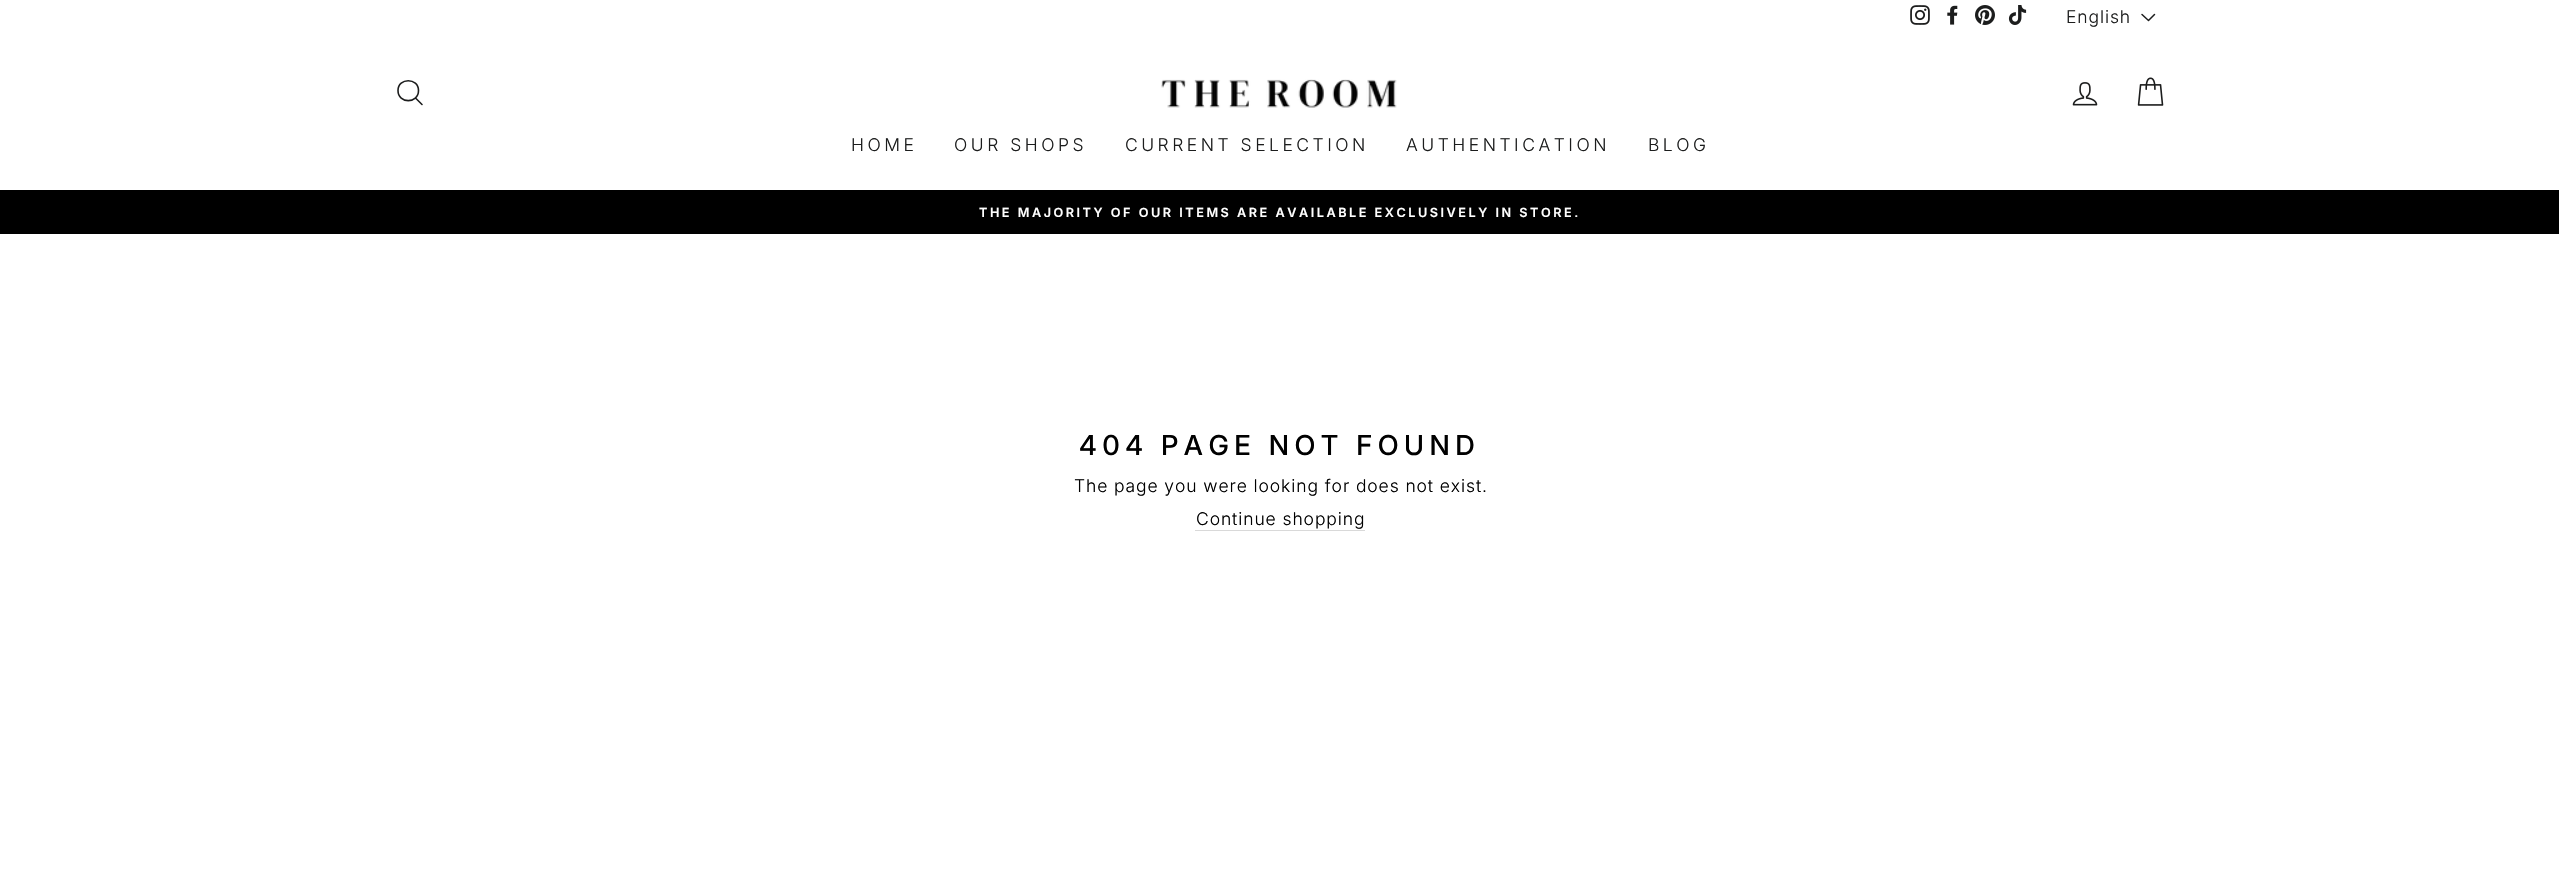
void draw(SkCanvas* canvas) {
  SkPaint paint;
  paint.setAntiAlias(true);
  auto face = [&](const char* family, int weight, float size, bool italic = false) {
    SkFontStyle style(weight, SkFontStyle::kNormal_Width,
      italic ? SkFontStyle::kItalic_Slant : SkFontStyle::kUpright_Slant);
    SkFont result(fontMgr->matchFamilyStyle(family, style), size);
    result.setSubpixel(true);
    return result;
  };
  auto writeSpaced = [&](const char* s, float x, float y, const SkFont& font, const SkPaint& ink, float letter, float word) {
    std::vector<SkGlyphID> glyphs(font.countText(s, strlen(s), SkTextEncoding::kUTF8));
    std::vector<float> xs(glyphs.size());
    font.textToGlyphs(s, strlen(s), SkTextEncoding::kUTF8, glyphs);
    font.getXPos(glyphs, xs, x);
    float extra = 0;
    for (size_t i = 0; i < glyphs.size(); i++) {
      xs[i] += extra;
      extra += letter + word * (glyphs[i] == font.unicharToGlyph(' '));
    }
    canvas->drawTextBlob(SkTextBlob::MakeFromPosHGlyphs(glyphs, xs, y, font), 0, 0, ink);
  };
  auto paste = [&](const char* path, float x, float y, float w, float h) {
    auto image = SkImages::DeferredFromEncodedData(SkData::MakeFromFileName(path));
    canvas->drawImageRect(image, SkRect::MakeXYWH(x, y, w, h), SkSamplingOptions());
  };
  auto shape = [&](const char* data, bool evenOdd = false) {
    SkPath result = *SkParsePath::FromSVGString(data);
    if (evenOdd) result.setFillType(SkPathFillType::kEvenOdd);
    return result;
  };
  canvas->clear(0xffffffff);
  paste("img/1.png", 1910, 5, 20, 20);
  paste("img/2.png", 1947, 5, 11, 20);
  paste("img/3.png", 1975, 5, 20, 20);
  paste("img/4.png", 2008, 5, 19, 20);
  paint.setStroke(true);
  paint.setStrokeWidth(1.5f);
  paint.setStrokeCap(SkPaint::kRound_Cap);
  paint.setStrokeJoin(SkPaint::kRound_Join);
  paint.setColor(0xff1c1d1d);
  canvas->drawPath(shape("M2142 14.5L2148.5 20.5L2154.5 14.5"), paint);
  paint.setStrokeWidth(1.6f);
  canvas->drawPath(shape("M418.5 90.5C418.5 104 398 104 398 90.5C398 77.5 418.5 77.5 418.5 90.5ZM422 104.5L415.5 98"), paint);
  paste("img/5.png", 1161, 79, 236, 29);
  paste("img/6.png", 2072, 82, 26, 24);
  paste("img/7.png", 2137, 77, 27, 29);
  paint.setStroke(false);
  paint.setColor(0xff000000);
  canvas->drawRect(SkRect::MakeXYWH(0, 190, 2559, 44), paint);
  paint.setColor(0xffd9d9d9);
  canvas->drawRect(SkRect::MakeXYWH(1195, 530, 170, 1), paint);
  auto f0 = face("Inter", 300, 17.5f);
  paint.setColor(0xff1c1d1d);
  writeSpaced("English", 2066, 23, f0, paint, 0.9f, 0);
  {
    const struct { const char* s; float x, y; } items[] = {
      {"HOME", 851, 151},
      {"OUR SHOPS", 954, 151},
      {"CURRENT SELECTION", 1125, 151},
      {"AUTHENTICATION", 1406, 151},
      {"BLOG", 1648, 151},
    };
    for (auto [s, x, y] : items) {
      writeSpaced(s, x, y, f0, paint, 3.5f, 0);
    }
  }
  auto f1 = face("Inter", 600, 12.65f);
  paint.setColor(0xffffffff);
  writeSpaced("THE MAJORITY OF OUR ITEMS ARE AVAILABLE EXCLUSIVELY IN STORE.", 979, 217, f1, paint, 2.53f, 0);
  auto f2 = face("Inter", 500, 27.5f);
  paint.setColor(0xff000000);
  writeSpaced("404 PAGE NOT FOUND", 1079, 455, f2, paint, 5.5f, 0);
  writeSpaced("The page you were looking for does not exist.", 1074, 492, f0, paint, 0.9f, 0);
  writeSpaced("Continue shopping", 1196, 525, f0, paint, 0.9f, 0);
}
